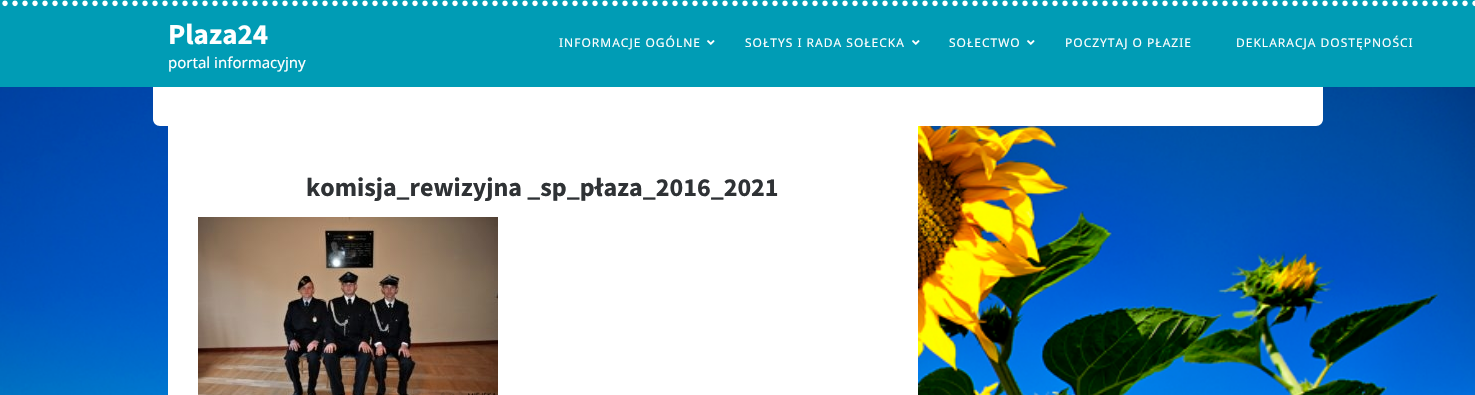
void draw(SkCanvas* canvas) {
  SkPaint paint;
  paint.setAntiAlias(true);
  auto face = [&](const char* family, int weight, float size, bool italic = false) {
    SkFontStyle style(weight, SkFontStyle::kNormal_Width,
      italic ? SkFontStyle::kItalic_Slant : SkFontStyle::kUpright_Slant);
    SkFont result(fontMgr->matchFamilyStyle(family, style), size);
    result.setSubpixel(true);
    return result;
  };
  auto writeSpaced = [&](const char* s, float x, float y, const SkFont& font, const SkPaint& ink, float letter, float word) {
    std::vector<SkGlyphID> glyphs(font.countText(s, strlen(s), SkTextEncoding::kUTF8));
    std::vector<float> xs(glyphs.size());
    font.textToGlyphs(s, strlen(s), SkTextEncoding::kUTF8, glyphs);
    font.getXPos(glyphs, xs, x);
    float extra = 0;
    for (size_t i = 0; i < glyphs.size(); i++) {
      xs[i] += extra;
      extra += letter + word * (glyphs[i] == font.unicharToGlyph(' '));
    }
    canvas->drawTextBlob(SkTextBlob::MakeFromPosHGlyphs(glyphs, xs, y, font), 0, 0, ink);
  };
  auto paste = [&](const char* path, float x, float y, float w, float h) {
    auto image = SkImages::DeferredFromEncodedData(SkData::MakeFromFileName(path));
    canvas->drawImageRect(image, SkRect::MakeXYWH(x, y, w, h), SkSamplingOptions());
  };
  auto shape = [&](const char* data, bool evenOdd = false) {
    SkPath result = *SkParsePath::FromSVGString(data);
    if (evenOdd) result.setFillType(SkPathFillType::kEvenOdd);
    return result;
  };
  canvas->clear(0xffffffff);
  paste("img/1.png", 0, 87, 1475, 308);
  paint.setColor(0xff009cb5);
  canvas->drawRect(SkRect::MakeXYWH(0, 0, 1475, 87), paint);
  paste("img/2.png", 2, 0, 1473, 7);
  paste("img/3.png", 707, 40, 8, 5);
  paste("img/3.png", 912, 40, 8, 5);
  paste("img/3.png", 1027, 40, 8, 5);
  paint.setColor(0xffffffff);
  canvas->drawPath(shape("M153 87H1323V119C1323 123 1320 126 1316 126H160C156 126 153 123 153 119Z"), paint);
  canvas->drawRect(SkRect::MakeXYWH(168, 126, 750, 269), paint);
  paste("img/4.png", 198, 217, 300, 178);
  auto f0 = face("Source Sans Pro", 700, 29);
  canvas->drawString("Plaza24", 168, 44, f0, paint);
  auto f1 = face("Noto Sans", 400, 15);
  canvas->drawString("portal informacyjny", 168, 68, f1, paint);
  auto f2 = face("Noto Sans", 400, 12);
  {
    const struct { const char* s; float x, y; } items[] = {
      {"INFORMACJE OGÓLNE", 559, 47},
      {"SOŁTYS I RADA SOŁECKA", 745, 47},
      {"SOŁECTWO", 949, 47},
      {"POCZYTAJ O PŁAZIE", 1065, 47},
      {"DEKLARACJA DOSTĘPNOŚCI", 1236, 47},
    };
    for (auto [s, x, y] : items) {
      writeSpaced(s, x, y, f2, paint, 1, 0);
    }
  }
  auto f3 = face("Source Sans Pro", 700, 26);
  paint.setColor(0xff2f3235);
  canvas->drawString("komisja_rewizyjna _sp_płaza_2016_2021", 306, 196, f3, paint);
}
